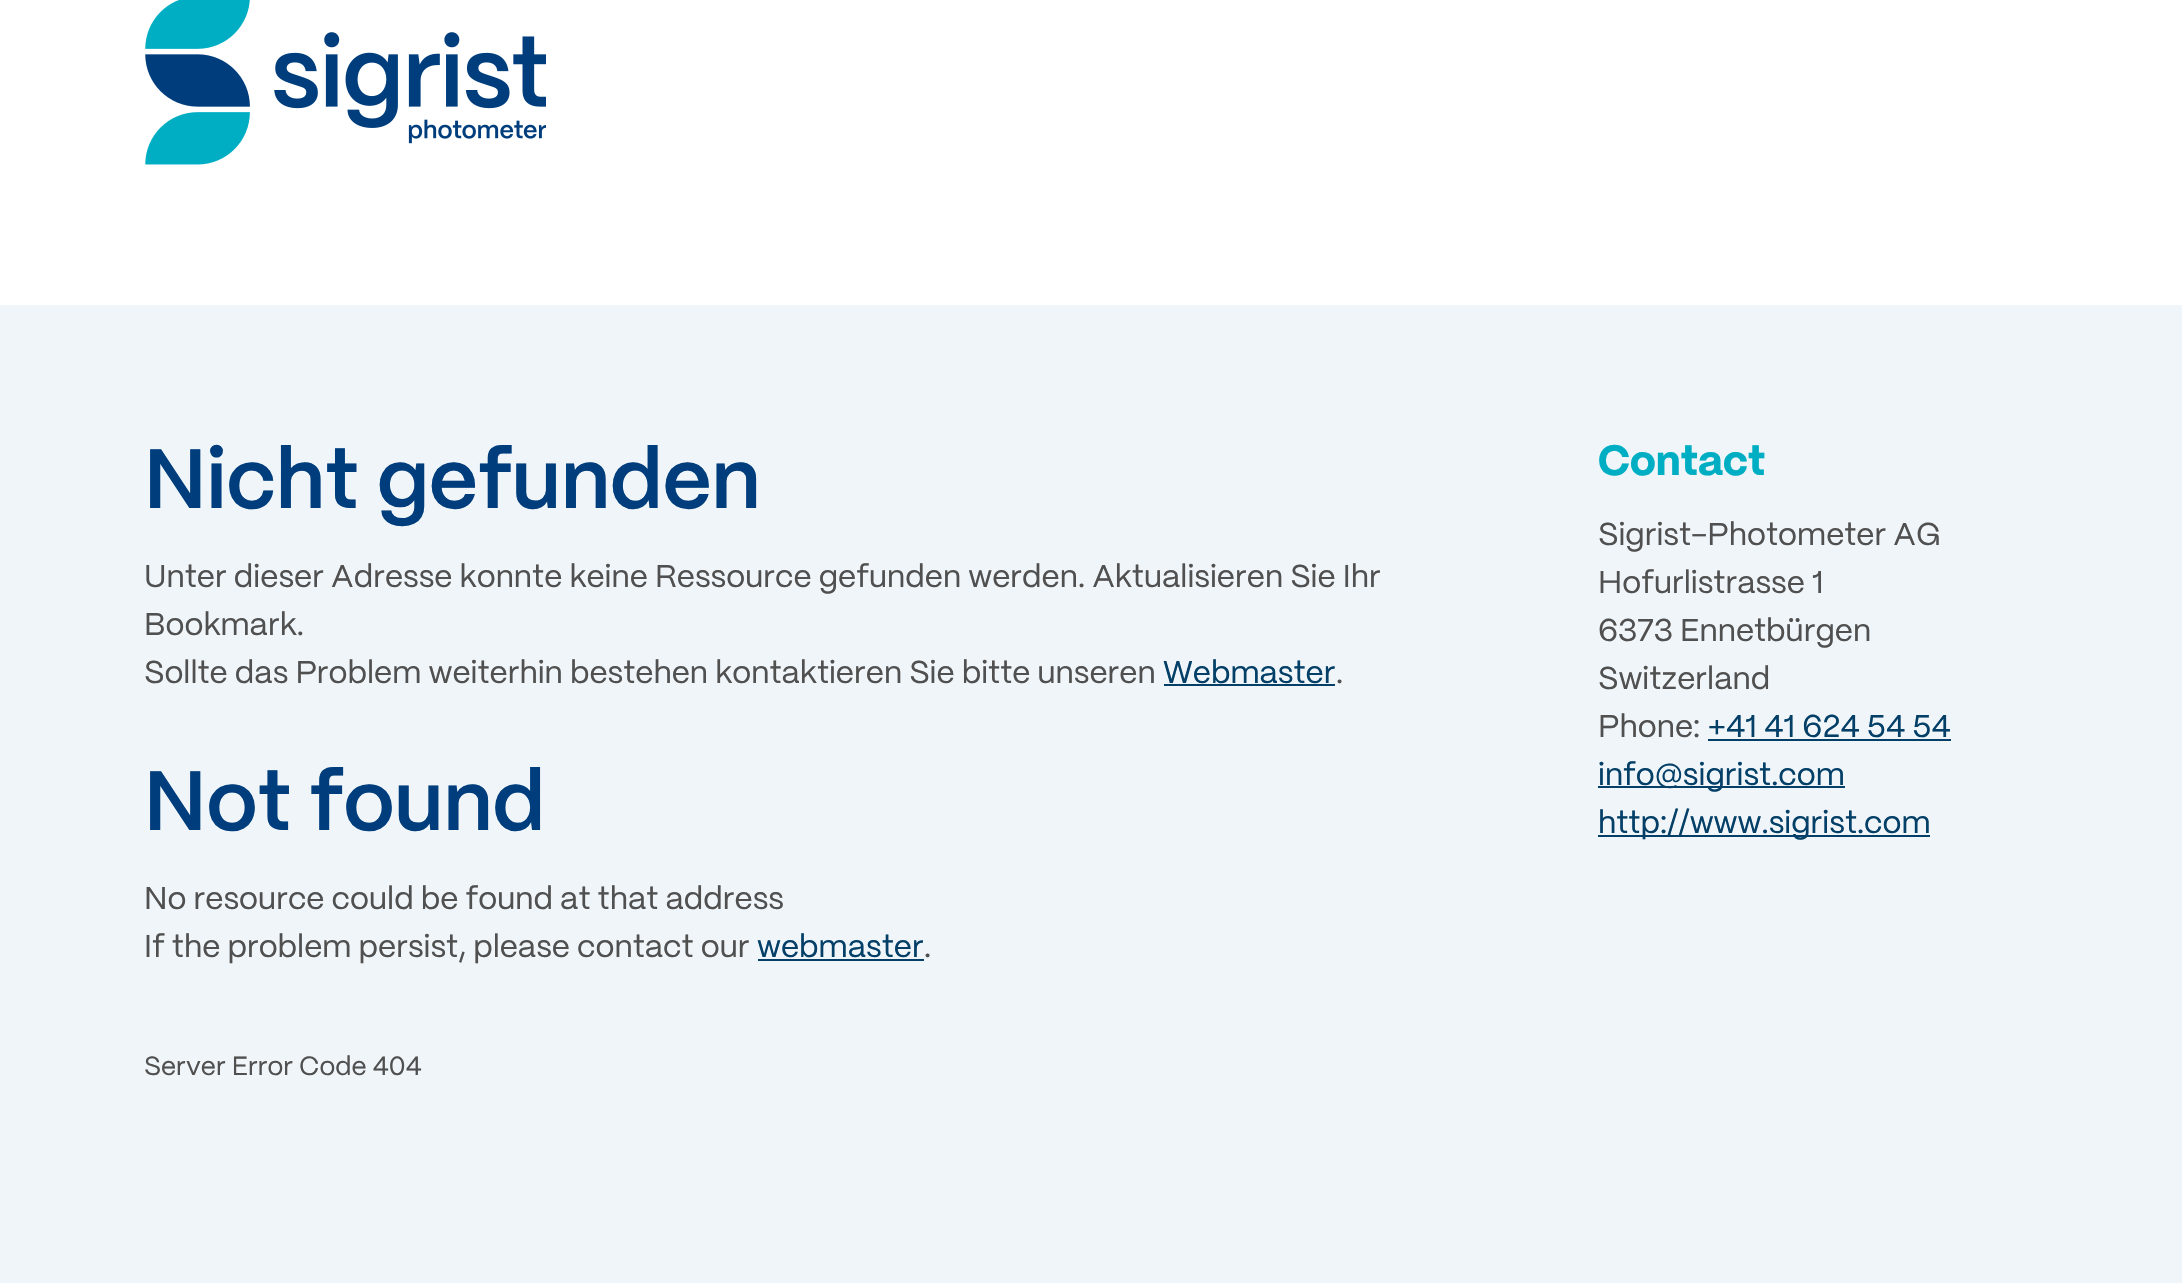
void draw(SkCanvas* canvas) {
  SkPaint paint;
  paint.setAntiAlias(true);
  auto face = [&](const char* family, int weight, float size, bool italic = false) {
    SkFontStyle style(weight, SkFontStyle::kNormal_Width,
      italic ? SkFontStyle::kItalic_Slant : SkFontStyle::kUpright_Slant);
    SkFont result(fontMgr->matchFamilyStyle(family, style), size);
    result.setSubpixel(true);
    return result;
  };
  auto paste = [&](const char* path, float x, float y, float w, float h) {
    auto image = SkImages::DeferredFromEncodedData(SkData::MakeFromFileName(path));
    canvas->drawImageRect(image, SkRect::MakeXYWH(x, y, w, h), SkSamplingOptions());
  };
  canvas->clear(0xffffffff);
  paste("img/1.png", 145, 0, 401, 165);
  {
    const struct { float x, y, w, h; SkColor color; } items[] = {
      {0, 305, 2182, 978, 0xffeff5f9},
      {1164, 684, 171, 2, 0xff033f67},
      {758, 959, 166, 2, 0xff033f67},
      {1708, 739, 243, 2, 0xff033f67},
      {1598, 786, 247, 2, 0xff033f67},
      {1598, 835, 332, 2, 0xff033f67},
    };
    for (auto [x, y, w, h, color] : items) {
      paint.setColor(color);
      canvas->drawRect(SkRect::MakeXYWH(x, y, w, h), paint);
    }
  }
  auto f0 = face("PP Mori", 600, 84);
  paint.setColor(0xff003d7c);
  canvas->drawString("Nicht gefunden", 144, 508, f0, paint);
  auto f1 = face("PP Mori", 400, 31.5f);
  paint.setColor(0xff505050);
  {
    const struct { const char* s; float x, y; } items[] = {
      {"Unter dieser Adresse konnte keine Ressource gefunden werden. Aktualisieren Sie Ihr", 144, 587},
      {"Bookmark.", 144, 635},
      {"Sollte das Problem weiterhin bestehen kontaktieren Sie bitte unseren", 144, 683},
    };
    for (auto [s, x, y] : items) {
      canvas->drawString(s, x, y, f1, paint);
    }
  }
  paint.setColor(0xff033f67);
  canvas->drawString("Webmaster", 1163, 683, f1, paint);
  paint.setColor(0xff505050);
  canvas->drawString(".", 1336, 683, f1, paint);
  paint.setColor(0xff003d7c);
  canvas->drawString("Not found", 144, 830, f0, paint);
  paint.setColor(0xff505050);
  canvas->drawString("No resource could be found at that address", 144, 909, f1, paint);
  canvas->drawString("If the problem persist, please contact our", 144, 957, f1, paint);
  paint.setColor(0xff033f67);
  canvas->drawString("webmaster", 757, 957, f1, paint);
  paint.setColor(0xff505050);
  canvas->drawString(".", 924, 957, f1, paint);
  auto f2 = face("PP Mori", 400, 26.25f);
  canvas->drawString("Server Error Code 404", 144, 1075, f2, paint);
  auto f3 = face("PP Mori", 800, 42);
  paint.setColor(0xff00aec3);
  canvas->drawString("Contact", 1598, 475, f3, paint);
  paint.setColor(0xff505050);
  {
    const struct { const char* s; float x, y; } items[] = {
      {"Sigrist-Photometer AG", 1598, 545},
      {"Hofurlistrasse 1", 1598, 593},
      {"6373 Ennetbürgen", 1598, 641},
      {"Switzerland", 1598, 689},
      {"Phone:", 1598, 737},
    };
    for (auto [s, x, y] : items) {
      canvas->drawString(s, x, y, f1, paint);
    }
  }
  paint.setColor(0xff033f67);
  {
    const struct { const char* s; float x, y; } items[] = {
      {"+41 41 624 54 54", 1708, 737},
      {"info@sigrist.com", 1598, 785},
      {"http://www.sigrist.com", 1598, 833},
    };
    for (auto [s, x, y] : items) {
      canvas->drawString(s, x, y, f1, paint);
    }
  }
}
